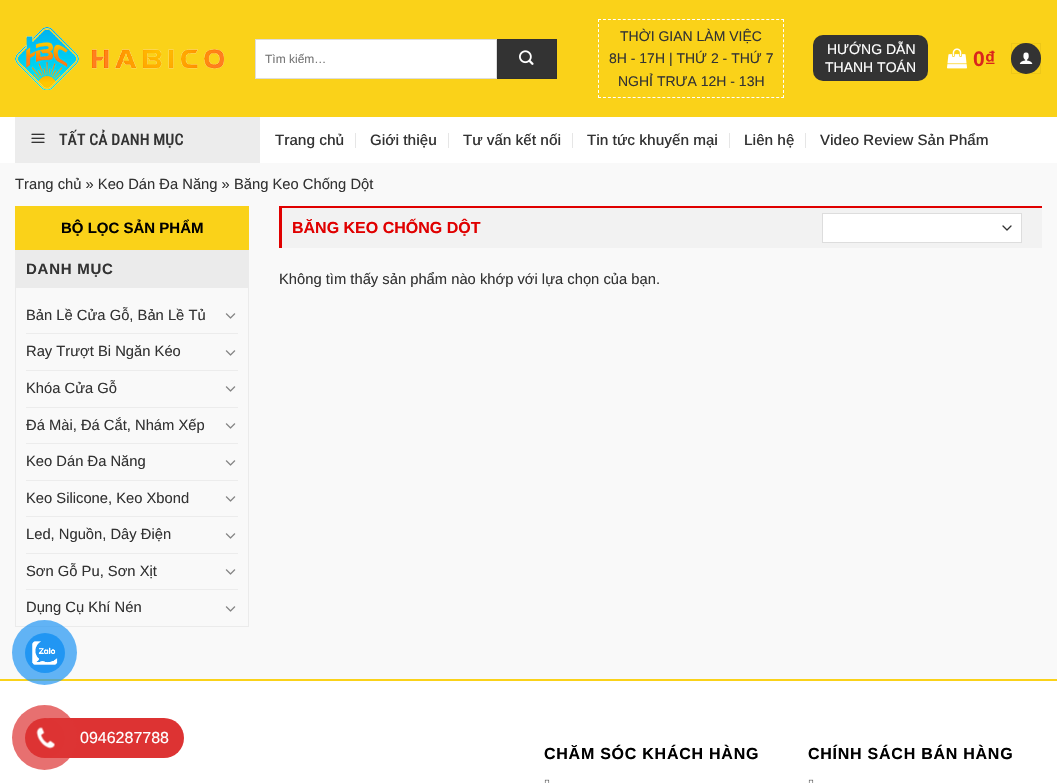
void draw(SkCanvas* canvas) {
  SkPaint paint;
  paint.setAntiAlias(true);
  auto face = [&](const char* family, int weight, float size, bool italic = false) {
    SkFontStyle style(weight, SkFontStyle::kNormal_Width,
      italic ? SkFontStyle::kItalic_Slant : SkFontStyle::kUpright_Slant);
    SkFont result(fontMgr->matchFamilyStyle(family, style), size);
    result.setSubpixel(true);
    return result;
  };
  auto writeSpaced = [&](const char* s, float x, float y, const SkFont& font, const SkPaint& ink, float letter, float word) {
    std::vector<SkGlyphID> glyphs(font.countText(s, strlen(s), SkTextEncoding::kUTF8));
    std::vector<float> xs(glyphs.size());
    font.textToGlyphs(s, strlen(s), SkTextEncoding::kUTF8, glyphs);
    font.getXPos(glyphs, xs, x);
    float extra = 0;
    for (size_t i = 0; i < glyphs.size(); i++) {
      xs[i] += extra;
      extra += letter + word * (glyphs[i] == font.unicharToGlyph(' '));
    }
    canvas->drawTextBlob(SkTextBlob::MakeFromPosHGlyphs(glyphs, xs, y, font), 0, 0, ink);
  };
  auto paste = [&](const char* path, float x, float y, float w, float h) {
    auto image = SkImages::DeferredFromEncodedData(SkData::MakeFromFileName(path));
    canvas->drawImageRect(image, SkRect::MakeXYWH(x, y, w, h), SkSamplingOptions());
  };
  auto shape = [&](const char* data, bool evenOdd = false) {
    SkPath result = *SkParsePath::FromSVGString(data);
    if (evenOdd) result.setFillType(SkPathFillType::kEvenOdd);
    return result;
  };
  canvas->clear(0xfff9f9f9);
  paint.setColor(0xfffad219);
  canvas->drawRect(SkRect::MakeXYWH(0, 0, 1057, 117), paint);
  paste("img/1.png", 15, 27, 209, 63);
  paint.setColor(0xffffffff);
  canvas->drawRect(SkRect::MakeXYWH(255.5f, 39.5f, 241, 39), paint);
  paint.setStroke(true);
  paint.setStrokeWidth(1);
  paint.setColor(0xffdddddd);
  canvas->drawRect(SkRect::MakeXYWH(255.5f, 39.5f, 241, 39), paint);
  paint.setStroke(false);
  paint.setColor(0xff333333);
  canvas->drawRect(SkRect::MakeXYWH(497.5f, 39.5f, 59, 39), paint);
  paint.setStroke(true);
  paint.setColor(0xff303030);
  canvas->drawRect(SkRect::MakeXYWH(497.5f, 39.5f, 59, 39), paint);
  paste("img/2.png", 519, 50, 15, 15);
  paint.setColor(0xffffffff);
  paint.setPathEffect(SkDashPathEffect::Make({{3, 1.95f}}, 0));
  canvas->drawPath(shape("M598 19.5H784"), paint);
  paint.setPathEffect(nullptr);
  paint.setPathEffect(SkDashPathEffect::Make({{3, 2.07f}}, 0));
  canvas->drawPath(shape("M783.5 19V98"), paint);
  paint.setPathEffect(nullptr);
  paint.setPathEffect(SkDashPathEffect::Make({{3, 1.95f}}, 0));
  canvas->drawPath(shape("M598 97.5H784"), paint);
  paint.setPathEffect(nullptr);
  paint.setPathEffect(SkDashPathEffect::Make({{3, 2.07f}}, 0));
  canvas->drawPath(shape("M598.5 19V98"), paint);
  paint.setPathEffect(nullptr);
  paint.setStroke(false);
  paint.setColor(0xff333333);
  canvas->drawRoundRect(SkRect::MakeXYWH(813, 35, 115, 46), 10, 10, paint);
  paste("img/3.png", 947, 48, 20, 21);
  canvas->drawRoundRect(SkRect::MakeXYWH(1011, 43, 30, 31), 15, 15, paint);
  paint.setStroke(true);
  paint.setColor(0x0d000000);
  canvas->drawRect(SkRect::MakeXYWH(1011.5f, 43.5f, 29, 30), paint);
  paste("img/4.png", 1019, 52, 14, 12);
  paint.setStroke(false);
  paint.setColor(0xffffffff);
  canvas->drawRect(SkRect::MakeXYWH(0, 117, 1057, 46), paint);
  paint.setColor(0xffececec);
  canvas->drawRect(SkRect::MakeXYWH(15, 117, 245, 46), paint);
  paste("img/5.png", 31, 133, 14, 10);
  {
    const struct { float x, y, w, h; SkColor color; } items[] = {
      {355, 133, 1, 15, 0xffe6e6e6},
      {448, 133, 1, 15, 0xffe6e6e6},
      {572, 133, 1, 15, 0xffe6e6e6},
      {729, 133, 1, 15, 0xffe6e6e6},
      {805, 133, 1, 15, 0xffe6e6e6},
      {15, 206, 234, 44, 0xfffad219},
    };
    for (auto [x, y, w, h, color] : items) {
      paint.setColor(color);
      canvas->drawRect(SkRect::MakeXYWH(x, y, w, h), paint);
    }
  }
  paint.setStroke(true);
  paint.setColor(0xffebebeb);
  canvas->drawRect(SkRect::MakeXYWH(15.5f, 250.5f, 233, 376), paint);
  paint.setStroke(false);
  canvas->drawRect(SkRect::MakeXYWH(16, 251, 232, 37), paint);
  paste("img/6.png", 225, 313, 11, 6);
  paint.setColor(0xffececec);
  canvas->drawRect(SkRect::MakeXYWH(26, 333, 212, 1), paint);
  paste("img/6.png", 225, 350, 11, 6);
  canvas->drawRect(SkRect::MakeXYWH(26, 370, 212, 1), paint);
  paste("img/6.png", 225, 386, 11, 6);
  canvas->drawRect(SkRect::MakeXYWH(26, 407, 212, 1), paint);
  paste("img/6.png", 225, 423, 11, 6);
  canvas->drawRect(SkRect::MakeXYWH(26, 443, 212, 1), paint);
  paste("img/6.png", 225, 460, 11, 6);
  canvas->drawRect(SkRect::MakeXYWH(26, 480, 212, 1), paint);
  paste("img/6.png", 225, 496, 11, 6);
  canvas->drawRect(SkRect::MakeXYWH(26, 516, 212, 1), paint);
  paste("img/6.png", 225, 533, 11, 6);
  canvas->drawRect(SkRect::MakeXYWH(26, 553, 212, 1), paint);
  paste("img/6.png", 225, 569, 11, 6);
  canvas->drawRect(SkRect::MakeXYWH(26, 589, 212, 1), paint);
  paste("img/6.png", 225, 606, 11, 6);
  {
    const struct { float x, y, w, h; SkColor color; } items[] = {
      {282, 208, 760, 40, 0xfff2f2f2},
      {279, 206, 763, 2, 0xffe00000},
      {279, 206, 3, 42, 0xffe00000},
      {823, 214, 198, 28, 0xffffffff},
    };
    for (auto [x, y, w, h, color] : items) {
      paint.setColor(color);
      canvas->drawRect(SkRect::MakeXYWH(x, y, w, h), paint);
    }
  }
  paint.setStroke(true);
  paint.setStrokeWidth(1.3f);
  paint.setStrokeCap(SkPaint::kRound_Cap);
  paint.setStrokeJoin(SkPaint::kRound_Join);
  paint.setColor(0xff333333);
  canvas->drawPath(shape("M1003 226L1007 230L1011 226"), paint);
  paint.setStrokeWidth(1);
  paint.setStrokeCap(SkPaint::kButt_Cap);
  paint.setStrokeJoin(SkPaint::kMiter_Join);
  paint.setColor(0xffdddddd);
  canvas->drawRect(SkRect::MakeXYWH(822.5f, 213.5f, 199, 29), paint);
  paint.setStroke(false);
  paint.setColor(0xfffad219);
  canvas->drawRect(SkRect::MakeXYWH(0, 679, 1057, 2), paint);
  paint.setColor(0xffffffff);
  canvas->drawRect(SkRect::MakeXYWH(0, 681, 1057, 102), paint);
  paste("img/7.png", 544, 779, 6, 4);
  paste("img/7.png", 808, 779, 6, 4);
  paint.setColor(0xb32196f3);
  canvas->drawCircle(44.5f, 652.5f, 32.5f, paint);
  paint.setColor(0xff2196f3);
  canvas->drawCircle(45, 653, 20, paint);
  paste("img/8.png", 32, 641, 26, 24);
  paint.setColor(0xffdd3333);
  canvas->drawRoundRect(SkRect::MakeXYWH(30, 718, 154, 40), 20, 20, paint);
  paint.setColor(0xb3dd3333);
  canvas->drawCircle(44.5f, 737.5f, 32.5f, paint);
  paint.setColor(0xffdd3333);
  canvas->drawCircle(45, 738, 20, paint);
  paste("img/9.png", 36, 727, 19, 22);
  auto f0 = face("Arimo", 400, 12);
  paint.setColor(0xff757575);
  canvas->drawString("Tìm kiếm…", 265, 63, f0, paint);
  auto f1 = face("Arimo", 400, 14);
  paint.setColor(0xff333333);
  {
    const struct { const char* s; float x, y; } items[] = {
      {"THỜI GIAN LÀM VIỆC", 620, 41},
      {"8H - 17H | THỨ 2 - THỨ 7", 609, 63},
      {"NGHỈ TRƯA 12H - 13H", 618, 86},
    };
    for (auto [s, x, y] : items) {
      canvas->drawString(s, x, y, f1, paint);
    }
  }
  paint.setColor(0xffffffff);
  canvas->drawString("HƯỚNG DẪN", 827, 54, f1, paint);
  canvas->drawString("THANH TOÁN", 825, 72, f1, paint);
  auto f2 = face("Arimo", 700, 21);
  paint.setColor(0xffda251d);
  canvas->drawString("0₫", 973, 66, f2, paint);
  auto f3 = face("Roboto Condensed", 500, 16);
  paint.setColor(0xff333333);
  canvas->drawString("TẤT CẢ DANH MỤC", 59, 145, f3, paint);
  auto f4 = face("Arimo", 500, 15);
  {
    const struct { const char* s; float x, y; } items[] = {
      {"Trang chủ", 275, 145},
      {"Giới thiệu", 370, 145},
      {"Tư vấn kết nối", 463, 145},
      {"Tin tức khuyến mại", 587, 145},
      {"Liên hệ", 744, 145},
      {"Video Review Sản Phẩm", 820, 145},
    };
    for (auto [s, x, y] : items) {
      canvas->drawString(s, x, y, f4, paint);
    }
  }
  auto f5 = face("Arimo", 400, 14.75f);
  canvas->drawString("Trang chủ » Keo Dán Đa Năng » Băng Keo Chống Dột", 15, 189, f5, paint);
  auto f6 = face("Arimo", 700, 15);
  paint.setColor(0xff000000);
  canvas->drawString("BỘ LỌC SẢN PHẨM", 61, 233, f6, paint);
  paint.setColor(0xff333333);
  writeSpaced("DANH MỤC", 26, 274, f6, paint, 0.75f, 0);
  {
    const struct { const char* s; float x, y; } items[] = {
      {"Bản Lề Cửa Gỗ, Bản Lề Tủ", 26, 320},
      {"Ray Trượt Bi Ngăn Kéo", 26, 356},
      {"Khóa Cửa Gỗ", 26, 393},
      {"Đá Mài, Đá Cắt, Nhám Xếp", 26, 430},
      {"Keo Dán Đa Năng", 26, 466},
      {"Keo Silicone, Keo Xbond", 26, 503},
      {"Led, Nguồn, Dây Điện", 26, 539},
      {"Sơn Gỗ Pu, Sơn Xịt", 26, 576},
      {"Dụng Cụ Khí Nén", 26, 612},
    };
    for (auto [s, x, y] : items) {
      canvas->drawString(s, x, y, f5, paint);
    }
  }
  auto f7 = face("Arimo", 700, 16);
  paint.setColor(0xffe00000);
  canvas->drawString("BĂNG KEO CHỐNG DỘT", 292, 233, f7, paint);
  paint.setColor(0xff333333);
  canvas->drawString("Không tìm thấy sản phẩm nào khớp với lựa chọn của bạn.", 279, 284, f5, paint);
  paint.setColor(0xff000000);
  writeSpaced("CHĂM SÓC KHÁCH HÀNG", 544, 759, f7, paint, 0.75f, 0);
  writeSpaced("CHÍNH SÁCH BÁN HÀNG", 808, 759, f7, paint, 0.75f, 0);
  auto f8 = face("Arimo", 400, 16);
  paint.setColor(0xffffffff);
  canvas->drawString("0946287788", 80, 743, f8, paint);
}
